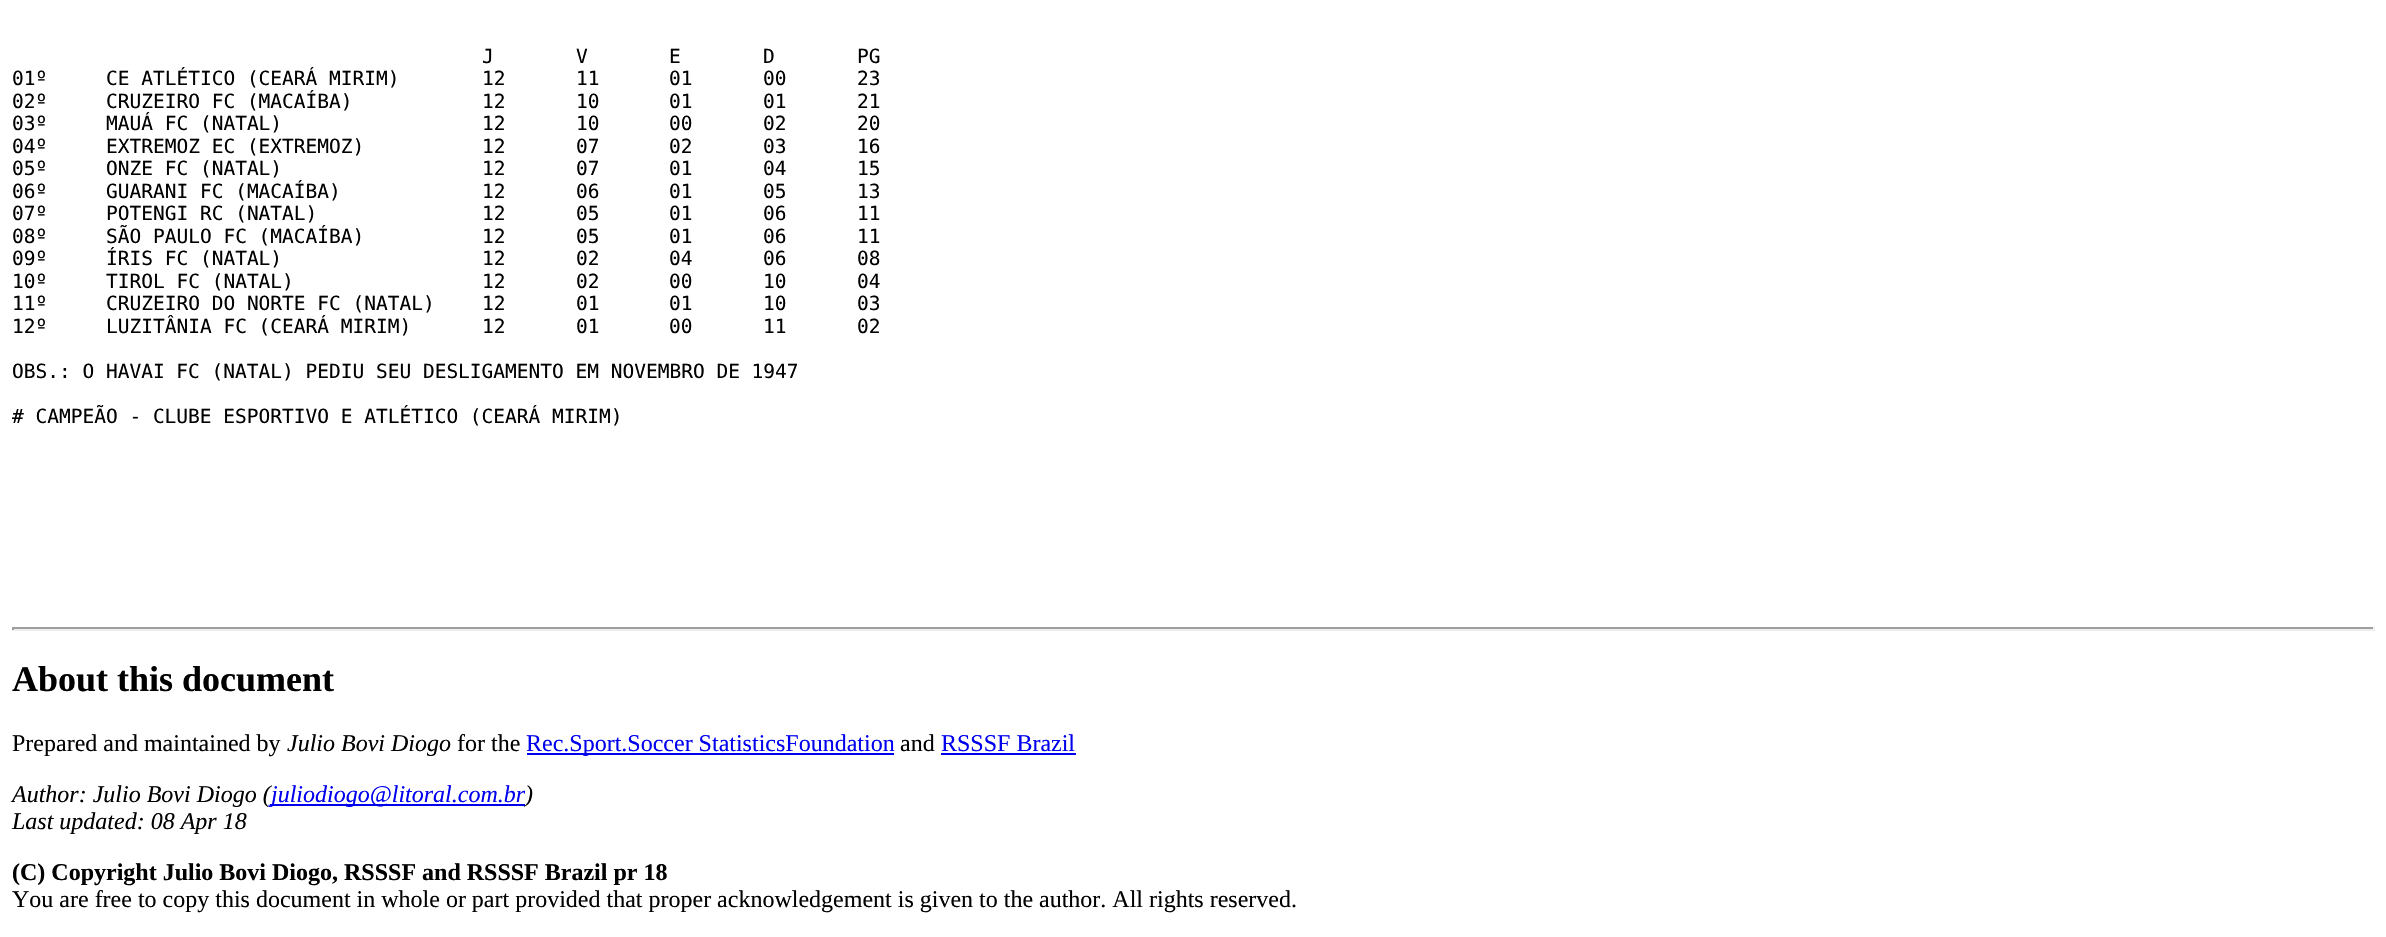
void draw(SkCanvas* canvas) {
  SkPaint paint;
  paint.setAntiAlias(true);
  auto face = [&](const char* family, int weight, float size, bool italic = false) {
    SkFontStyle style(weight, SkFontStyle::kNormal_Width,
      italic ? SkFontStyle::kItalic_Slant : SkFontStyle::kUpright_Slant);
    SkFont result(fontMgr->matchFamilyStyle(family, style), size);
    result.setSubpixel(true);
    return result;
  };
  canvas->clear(0xffffffff);
  {
    const struct { float x, y, w, h; SkColor color; } items[] = {
      {12, 627, 2363, 2, 0xff9f9f9f},
      {2373, 627, 2, 3, 0xffeeeeee},
      {12, 629, 2363, 2, 0xffeeeeee},
      {12, 627, 2, 3, 0xff9f9f9f},
      {527, 753, 367, 2, 0xff0000ee},
      {941, 753, 135, 2, 0xff0000ee},
    };
    for (auto [x, y, w, h, color] : items) {
      paint.setColor(color);
      canvas->drawRect(SkRect::MakeXYWH(x, y, w, h), paint);
    }
  }
  auto f0 = face("DejaVu Sans Mono", 400, 19.5f);
  paint.setColor(0xff000000);
  {
    const struct { const char* s; float x, y; } items[] = {
      {"J", 482, 63},
      {"V", 576, 63},
      {"E", 669, 63},
      {"D", 763, 63},
      {"PG", 857, 63},
      {"01º", 12, 85},
      {"CE ATLÉTICO (CEARÁ MIRIM)", 106, 85},
      {"12", 482, 85},
      {"11", 576, 85},
      {"01", 669, 85},
      {"00", 763, 85},
      {"23", 857, 85},
      {"02º", 12, 108},
      {"CRUZEIRO FC (MACAÍBA)", 106, 108},
      {"12", 482, 108},
      {"10", 576, 108},
      {"01", 669, 108},
      {"01", 763, 108},
      {"21", 857, 108},
      {"03º", 12, 130},
      {"MAUÁ FC (NATAL)", 106, 130},
      {"12", 482, 130},
      {"10", 576, 130},
      {"00", 669, 130},
      {"02", 763, 130},
      {"20", 857, 130},
      {"04º", 12, 153},
      {"EXTREMOZ EC (EXTREMOZ)", 106, 153},
      {"12", 482, 153},
      {"07", 576, 153},
      {"02", 669, 153},
      {"03", 763, 153},
      {"16", 857, 153},
      {"05º", 12, 175},
      {"ONZE FC (NATAL)", 106, 175},
      {"12", 482, 175},
      {"07", 576, 175},
      {"01", 669, 175},
      {"04", 763, 175},
      {"15", 857, 175},
      {"06º", 12, 198},
      {"GUARANI FC (MACAÍBA)", 106, 198},
      {"12", 482, 198},
      {"06", 576, 198},
      {"01", 669, 198},
      {"05", 763, 198},
      {"13", 857, 198},
      {"07º", 12, 220},
      {"POTENGI RC (NATAL)", 106, 220},
      {"12", 482, 220},
      {"05", 576, 220},
      {"01", 669, 220},
      {"06", 763, 220},
      {"11", 857, 220},
      {"08º", 12, 243},
      {"SÃO PAULO FC (MACAÍBA)", 106, 243},
      {"12", 482, 243},
      {"05", 576, 243},
      {"01", 669, 243},
      {"06", 763, 243},
      {"11", 857, 243},
      {"09º", 12, 265},
      {"ÍRIS FC (NATAL)", 106, 265},
      {"12", 482, 265},
      {"02", 576, 265},
      {"04", 669, 265},
      {"06", 763, 265},
      {"08", 857, 265},
      {"10º", 12, 288},
      {"TIROL FC (NATAL)", 106, 288},
      {"12", 482, 288},
      {"02", 576, 288},
      {"00", 669, 288},
      {"10", 763, 288},
      {"04", 857, 288},
      {"11º", 12, 310},
      {"CRUZEIRO DO NORTE FC (NATAL)", 106, 310},
      {"12", 482, 310},
      {"01", 576, 310},
      {"01", 669, 310},
      {"10", 763, 310},
      {"03", 857, 310},
      {"12º", 12, 333},
      {"LUZITÂNIA FC (CEARÁ MIRIM)", 106, 333},
      {"12", 482, 333},
      {"01", 576, 333},
      {"00", 669, 333},
      {"11", 763, 333},
      {"02", 857, 333},
      {"OBS.: O HAVAI FC (NATAL) PEDIU SEU DESLIGAMENTO EM NOVEMBRO DE 1947", 12, 378},
      {"# CAMPEÃO - CLUBE ESPORTIVO E ATLÉTICO (CEARÁ MIRIM)", 12, 423},
    };
    for (auto [s, x, y] : items) {
      canvas->drawString(s, x, y, f0, paint);
    }
  }
  auto f1 = face("Liberation Serif", 700, 36);
  canvas->drawString("About this document", 12, 691, f1, paint);
  auto f2 = face("Liberation Serif", 400, 24);
  canvas->drawString("Prepared and maintained by", 12, 751, f2, paint);
  auto f3 = face("Liberation Serif", 400, 24, true);
  canvas->drawString("Julio Bovi Diogo", 287, 751, f3, paint);
  canvas->drawString("for the", 457, 751, f2, paint);
  paint.setColor(0xff0000ee);
  canvas->drawString("Rec.Sport.Soccer StatisticsFoundation", 526, 751, f2, paint);
  paint.setColor(0xff000000);
  canvas->drawString("and", 900, 751, f2, paint);
  paint.setColor(0xff0000ee);
  canvas->drawString("RSSSF Brazil", 941, 751, f2, paint);
  paint.setColor(0xff000000);
  canvas->drawString("Author: Julio Bovi Diogo (", 12, 802, f3, paint);
  paint.setColor(0xff0000ee);
  canvas->drawRect(SkRect::MakeXYWH(270, 804, 255, 2), paint);
  canvas->drawString("juliodiogo@litoral.com.br", 271, 802, f3, paint);
  paint.setColor(0xff000000);
  canvas->drawString(")", 525, 802, f3, paint);
  canvas->drawString("Last updated: 08 Apr 18", 12, 829, f3, paint);
  auto f4 = face("Liberation Serif", 700, 24);
  canvas->drawString("(C) Copyright Julio Bovi Diogo, RSSSF and RSSSF Brazil pr 18", 12, 880, f4, paint);
  canvas->drawString("You are free to copy this document in whole or part provided that proper acknowledgement is given to the author. All rights reserved.", 12, 907, f2, paint);
}
